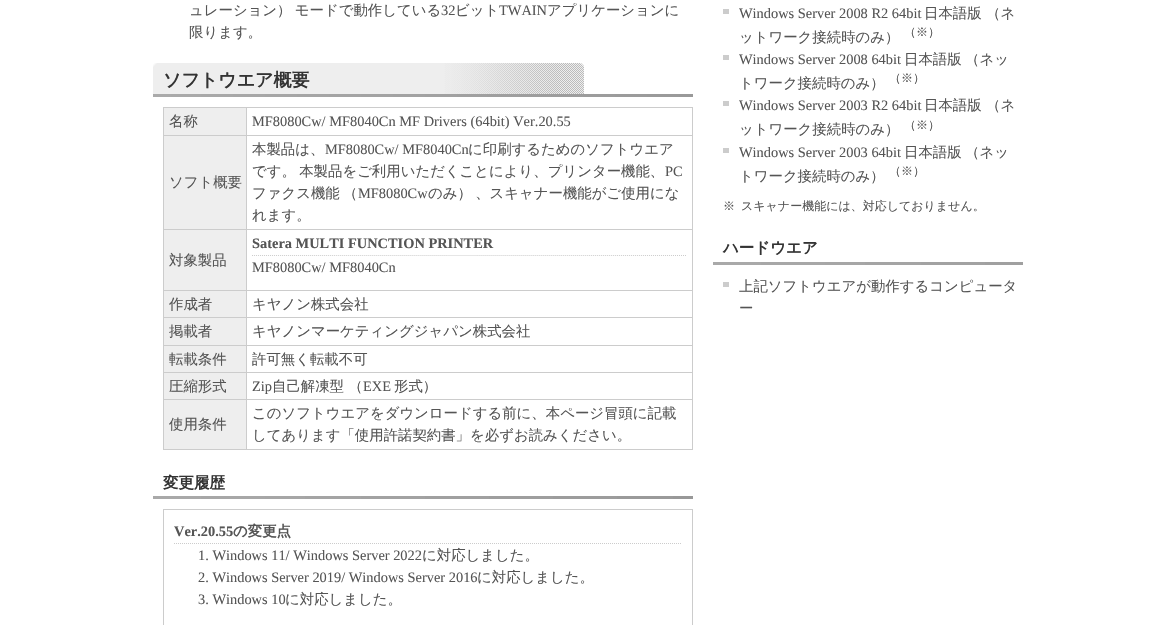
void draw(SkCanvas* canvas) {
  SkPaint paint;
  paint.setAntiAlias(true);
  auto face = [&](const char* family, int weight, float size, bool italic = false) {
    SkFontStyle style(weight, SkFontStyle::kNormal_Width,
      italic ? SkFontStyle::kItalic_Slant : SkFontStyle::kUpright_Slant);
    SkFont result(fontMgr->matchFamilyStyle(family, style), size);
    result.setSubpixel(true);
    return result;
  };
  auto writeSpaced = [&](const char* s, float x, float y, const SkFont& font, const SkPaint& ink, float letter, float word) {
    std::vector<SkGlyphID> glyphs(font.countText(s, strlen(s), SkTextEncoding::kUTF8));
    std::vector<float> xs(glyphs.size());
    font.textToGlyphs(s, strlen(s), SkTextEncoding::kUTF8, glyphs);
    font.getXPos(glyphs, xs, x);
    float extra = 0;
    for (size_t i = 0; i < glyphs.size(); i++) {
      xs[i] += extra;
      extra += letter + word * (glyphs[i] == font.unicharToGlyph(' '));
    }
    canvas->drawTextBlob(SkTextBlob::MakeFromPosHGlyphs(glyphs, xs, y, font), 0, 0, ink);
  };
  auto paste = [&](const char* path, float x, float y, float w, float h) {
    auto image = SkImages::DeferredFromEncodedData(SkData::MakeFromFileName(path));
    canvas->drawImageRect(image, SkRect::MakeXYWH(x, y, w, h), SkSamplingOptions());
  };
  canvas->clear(0xffffffff);
  paste("img/1.png", 153, 94, 540, 3);
  paste("img/2.png", 153, 63, 431, 31);
  {
    const struct { float x, y, w, h; SkColor color; } items[] = {
      {164, 108, 82, 27, 0xffeeeeee},
      {246, 107, 447, 1, 0xffcccccc},
      {246, 135, 447, 1, 0xffcccccc},
      {246, 229, 447, 1, 0xffcccccc},
      {246, 290, 447, 1, 0xffcccccc},
      {246, 317, 447, 1, 0xffcccccc},
      {246, 345, 447, 1, 0xffcccccc},
      {246, 372, 447, 1, 0xffcccccc},
      {246, 399, 447, 1, 0xffcccccc},
      {692, 399, 1, 51, 0xffcccccc},
      {246, 449, 447, 1, 0xffcccccc},
      {246, 399, 1, 51, 0xffcccccc},
      {163, 399, 84, 1, 0xffcccccc},
      {246, 372, 1, 28, 0xffcccccc},
      {163, 372, 84, 1, 0xffcccccc},
      {246, 345, 1, 28, 0xffcccccc},
      {163, 345, 84, 1, 0xffcccccc},
      {246, 317, 1, 29, 0xffcccccc},
      {163, 317, 84, 1, 0xffcccccc},
      {246, 290, 1, 28, 0xffcccccc},
      {163, 290, 84, 1, 0xffcccccc},
      {246, 229, 1, 62, 0xffcccccc},
      {163, 229, 84, 1, 0xffcccccc},
      {246, 135, 1, 95, 0xffcccccc},
      {163, 135, 84, 1, 0xffcccccc},
      {246, 107, 1, 29, 0xffcccccc},
      {163, 107, 84, 1, 0xffcccccc},
      {163, 449, 84, 1, 0xffcccccc},
      {163, 399, 1, 51, 0xffcccccc},
      {163, 372, 1, 28, 0xffcccccc},
      {163, 345, 1, 28, 0xffcccccc},
      {163, 317, 1, 29, 0xffcccccc},
      {163, 290, 1, 28, 0xffcccccc},
      {163, 229, 1, 62, 0xffcccccc},
      {163, 135, 1, 95, 0xffcccccc},
      {163, 107, 1, 29, 0xffcccccc},
      {692, 372, 1, 28, 0xffcccccc},
      {692, 345, 1, 28, 0xffcccccc},
      {692, 317, 1, 29, 0xffcccccc},
      {692, 290, 1, 28, 0xffcccccc},
      {692, 229, 1, 62, 0xffcccccc},
      {692, 135, 1, 95, 0xffcccccc},
      {692, 107, 1, 29, 0xffcccccc},
      {164, 136, 82, 93, 0xffeeeeee},
      {164, 230, 82, 60, 0xffeeeeee},
    };
    for (auto [x, y, w, h, color] : items) {
      paint.setColor(color);
      canvas->drawRect(SkRect::MakeXYWH(x, y, w, h), paint);
    }
  }
  paste("img/3.png", 252, 255, 434, 1);
  {
    const struct { float x, y, w, h; SkColor color; } items[] = {
      {164, 291, 82, 26, 0xffeeeeee},
      {164, 318, 82, 27, 0xffeeeeee},
      {164, 346, 82, 26, 0xffeeeeee},
      {164, 373, 82, 26, 0xffeeeeee},
      {164, 400, 82, 49, 0xffeeeeee},
    };
    for (auto [x, y, w, h, color] : items) {
      paint.setColor(color);
      canvas->drawRect(SkRect::MakeXYWH(x, y, w, h), paint);
    }
  }
  paste("img/4.png", 153, 496, 540, 3);
  paint.setStroke(true);
  paint.setStrokeWidth(1);
  paint.setColor(0xffcccccc);
  canvas->drawRect(SkRect::MakeXYWH(163.5f, 509.5f, 529, 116), paint);
  paste("img/5.png", 174, 543, 507, 1);
  paint.setStroke(false);
  {
    const struct { float x, y, w, h; SkColor color; } items[] = {
      {723, 9, 6, 5, 0xffcccccc},
      {723, 55, 6, 5, 0xffcccccc},
      {723, 101, 6, 5, 0xffcccccc},
      {723, 148, 6, 5, 0xffcccccc},
    };
    for (auto [x, y, w, h, color] : items) {
      paint.setColor(color);
      canvas->drawRect(SkRect::MakeXYWH(x, y, w, h), paint);
    }
  }
  paste("img/6.png", 713, 262, 310, 3);
  canvas->drawRect(SkRect::MakeXYWH(723, 282, 6, 5), paint);
  auto f0 = face("WenQuanYi Zen Hei", 500, 14.4f);
  paint.setColor(0xff555555);
  writeSpaced("ュレーション） モードで動作している", 189, 15, f0, paint, 0, -1);
  auto f1 = face("Liberation Serif", 400, 14.4f);
  canvas->drawString("32", 441, 15, f1, paint);
  canvas->drawString("ビット", 455, 15, f0, paint);
  canvas->drawString("TWAIN", 499, 15, f1, paint);
  canvas->drawString("アプリケーションに", 547, 15, f0, paint);
  canvas->drawString("限ります。", 189, 37, f0, paint);
  auto f2 = face("WenQuanYi Zen Hei", 700, 18);
  paint.setColor(0xff333333);
  canvas->drawString("ソフトウエア概要", 163, 86, f2, paint);
  paint.setColor(0xff555555);
  canvas->drawString("名称", 169, 126, f0, paint);
  canvas->drawString("MF8080Cw/ MF8040Cn MF Drivers (64bit) Ver.20.55", 252, 126, f1, paint);
  canvas->drawString("ソフト概要", 169, 187, f0, paint);
  canvas->drawString("本製品は、", 252, 154, f0, paint);
  canvas->drawString("MF8080Cw/ MF8040Cn", 325, 154, f1, paint);
  canvas->drawString("に印刷するためのソフトウエア", 468, 154, f0, paint);
  writeSpaced("です。 本製品をご利用いただくことにより、プリンター機能、", 252, 176, f0, paint, 0, -1);
  canvas->drawString("PC", 665, 176, f1, paint);
  writeSpaced("ファクス機能 （", 252, 198, f0, paint, 0, -1);
  canvas->drawString("MF8080Cw", 358, 198, f1, paint);
  writeSpaced("のみ） 、スキャナー機能がご使用にな", 428, 198, f0, paint, 0, -1);
  canvas->drawString("れます。", 252, 220, f0, paint);
  canvas->drawString("対象製品", 169, 265, f0, paint);
  auto f3 = face("Liberation Serif", 700, 14.4f);
  canvas->drawString("Satera MULTI FUNCTION PRINTER", 252, 248, f3, paint);
  canvas->drawString("MF8080Cw/ MF8040Cn", 252, 272, f1, paint);
  {
    const struct { const char* s; float x, y; } items[] = {
      {"作成者", 169, 309},
      {"キヤノン株式会社", 252, 309},
      {"掲載者", 169, 336},
      {"キヤノンマーケティングジャパン株式会社", 252, 336},
      {"転載条件", 169, 364},
      {"許可無く転載不可", 252, 364},
      {"圧縮形式", 169, 391},
    };
    for (auto [s, x, y] : items) {
      canvas->drawString(s, x, y, f0, paint);
    }
  }
  canvas->drawString("Zip", 252, 391, f1, paint);
  canvas->drawString("自己解凍型 （", 272, 391, f0, paint);
  canvas->drawString("EXE", 363, 391, f1, paint);
  {
    const struct { const char* s; float x, y; } items[] = {
      {"形式）", 394, 391},
      {"使用条件", 169, 429},
      {"このソフトウエアをダウンロードする前に、本ページ冒頭に記載", 252, 418},
      {"してあります「使用許諾契約書」を必ずお読みください。", 252, 440},
    };
    for (auto [s, x, y] : items) {
      canvas->drawString(s, x, y, f0, paint);
    }
  }
  auto f4 = face("WenQuanYi Zen Hei", 700, 15.5f);
  paint.setColor(0xff333333);
  canvas->drawString("変更履歴", 163, 488, f4, paint);
  paint.setColor(0xff555555);
  canvas->drawString("Ver.20.55", 174, 536, f3, paint);
  auto f5 = face("WenQuanYi Zen Hei", 700, 14.4f);
  canvas->drawString("の変更点", 233, 536, f5, paint);
  canvas->drawString("1. Windows 11/ Windows Server 2022", 198, 560, f1, paint);
  canvas->drawString("に対応しました。", 422, 560, f0, paint);
  canvas->drawString("2. Windows Server 2019/ Windows Server 2016", 198, 582, f1, paint);
  canvas->drawString("に対応しました。", 477, 582, f0, paint);
  canvas->drawString("3. Windows 10", 198, 604, f1, paint);
  canvas->drawString("に対応しました。", 285, 604, f0, paint);
  canvas->drawString("Windows Server 2008 R2 64bit", 739, 18, f1, paint);
  {
    const struct { const char* s; float x, y; } items[] = {
      {"日本語版", 924, 18},
      {"（ネ", 986, 18},
      {"ットワーク接続時のみ）", 739, 42},
    };
    for (auto [s, x, y] : items) {
      canvas->drawString(s, x, y, f0, paint);
    }
  }
  auto f6 = face("WenQuanYi Zen Hei", 500, 12);
  canvas->drawString("（※）", 904, 36, f6, paint);
  canvas->drawString("Windows Server 2008 64bit", 739, 64, f1, paint);
  {
    const struct { const char* s; float x, y; } items[] = {
      {"日本語版", 904, 64},
      {"（ネッ", 965, 64},
      {"トワーク接続時のみ）", 739, 88},
    };
    for (auto [s, x, y] : items) {
      canvas->drawString(s, x, y, f0, paint);
    }
  }
  canvas->drawString("（※）", 889, 82, f6, paint);
  canvas->drawString("Windows Server 2003 R2 64bit", 739, 110, f1, paint);
  {
    const struct { const char* s; float x, y; } items[] = {
      {"日本語版", 924, 110},
      {"（ネ", 986, 110},
      {"ットワーク接続時のみ）", 739, 134},
    };
    for (auto [s, x, y] : items) {
      canvas->drawString(s, x, y, f0, paint);
    }
  }
  canvas->drawString("（※）", 904, 129, f6, paint);
  canvas->drawString("Windows Server 2003 64bit", 739, 157, f1, paint);
  {
    const struct { const char* s; float x, y; } items[] = {
      {"日本語版", 904, 157},
      {"（ネッ", 965, 157},
      {"トワーク接続時のみ）", 739, 181},
    };
    for (auto [s, x, y] : items) {
      canvas->drawString(s, x, y, f0, paint);
    }
  }
  {
    const struct { const char* s; float x, y; } items[] = {
      {"（※）", 889, 175},
      {"※", 723, 210},
      {"スキャナー機能には、対応しておりません。", 741, 210},
    };
    for (auto [s, x, y] : items) {
      canvas->drawString(s, x, y, f6, paint);
    }
  }
  paint.setColor(0xff333333);
  canvas->drawString("ハードウエア", 723, 253, f4, paint);
  paint.setColor(0xff555555);
  canvas->drawString("上記ソフトウエアが動作するコンピュータ", 739, 291, f0, paint);
  canvas->drawString("ー", 739, 313, f0, paint);
}
